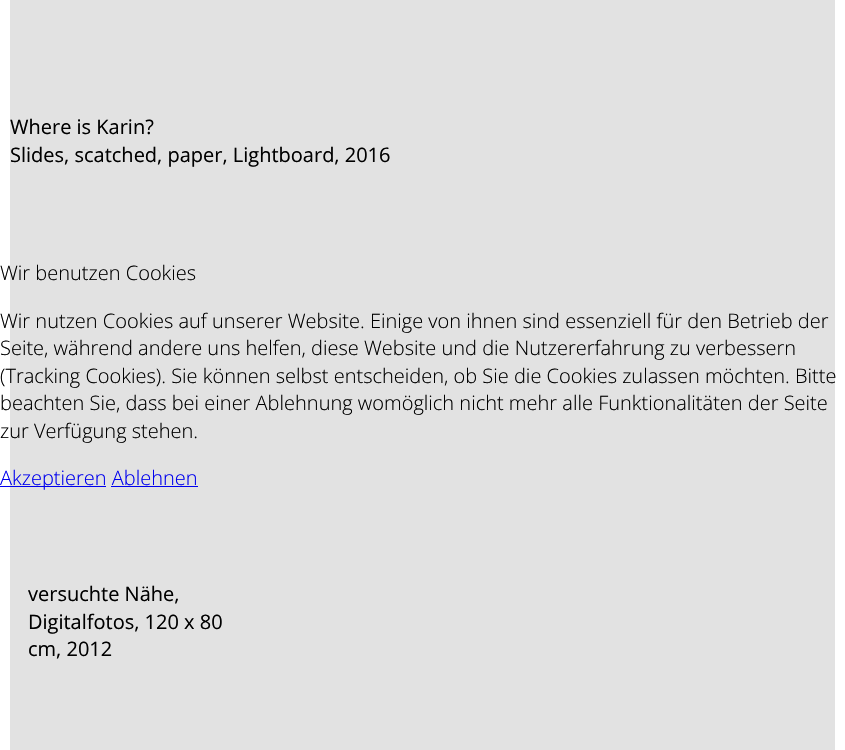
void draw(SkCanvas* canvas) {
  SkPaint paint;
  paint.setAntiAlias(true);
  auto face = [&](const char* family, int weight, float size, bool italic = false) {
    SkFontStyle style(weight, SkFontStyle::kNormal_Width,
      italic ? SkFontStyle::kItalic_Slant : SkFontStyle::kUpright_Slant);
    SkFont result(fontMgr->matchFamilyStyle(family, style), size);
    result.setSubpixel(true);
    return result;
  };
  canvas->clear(0xffffffff);
  {
    const struct { float x, y, w, h; SkColor color; } items[] = {
      {10, 0, 825, 750, 0xffe2e2e2},
      {0, 486, 106, 1, 0xff0000ee},
      {111, 486, 87, 1, 0xff0000ee},
    };
    for (auto [x, y, w, h, color] : items) {
      paint.setColor(color);
      canvas->drawRect(SkRect::MakeXYWH(x, y, w, h), paint);
    }
  }
  auto f0 = face("Open Sans", 400, 20);
  paint.setColor(0xff000000);
  {
    const struct { const char* s; float x, y; } items[] = {
      {"Where is Karin?", 10, 134},
      {"Slides, scatched, paper, Lightboard, 2016", 10, 162},
      {"versuchte Nähe,", 28, 601},
      {"Digitalfotos, 120 x 80", 28, 629},
      {"cm, 2012", 28, 656},
    };
    for (auto [s, x, y] : items) {
      canvas->drawString(s, x, y, f0, paint);
    }
  }
  auto f1 = face("Open Sans", 300, 20);
  {
    const struct { const char* s; float x, y; } items[] = {
      {"Wir benutzen Cookies", 0, 280},
      {"Wir nutzen Cookies auf unserer Website. Einige von ihnen sind essenziell für den Betrieb der", 0, 328},
      {"Seite, während andere uns helfen, diese Website und die Nutzererfahrung zu verbessern", 0, 355},
      {"(Tracking Cookies). Sie können selbst entscheiden, ob Sie die Cookies zulassen möchten. Bitte", 0, 383},
      {"beachten Sie, dass bei einer Ablehnung womöglich nicht mehr alle Funktionalitäten der Seite", 0, 410},
      {"zur Verfügung stehen.", 0, 438},
    };
    for (auto [s, x, y] : items) {
      canvas->drawString(s, x, y, f1, paint);
    }
  }
  paint.setColor(0xff0000ee);
  canvas->drawString("Akzeptieren Ablehnen", 0, 485, f1, paint);
}
